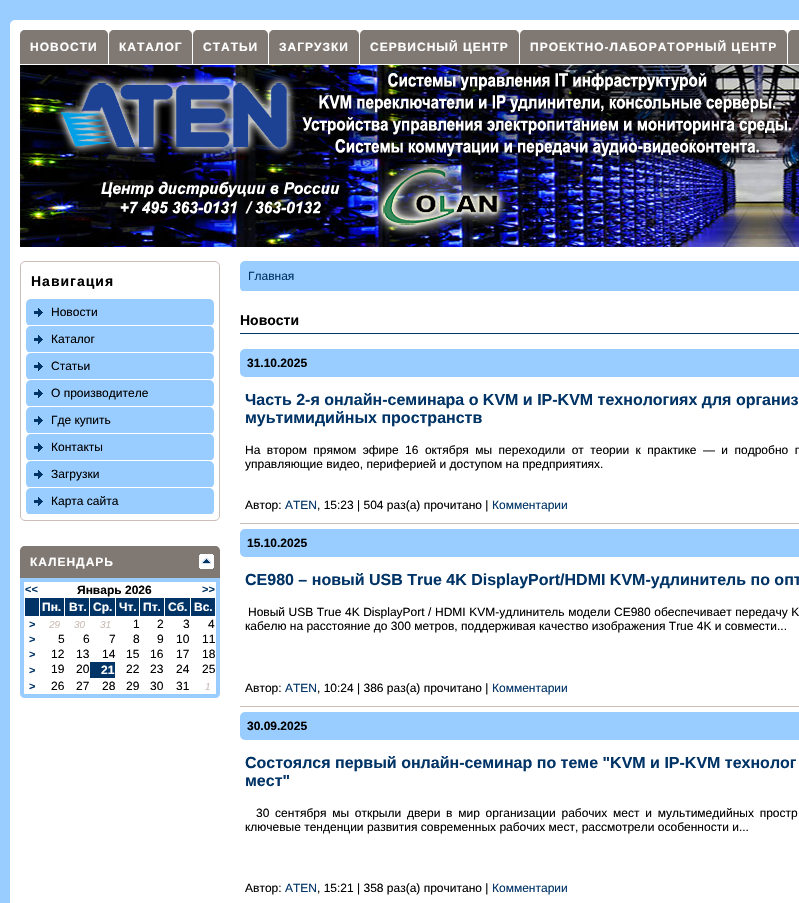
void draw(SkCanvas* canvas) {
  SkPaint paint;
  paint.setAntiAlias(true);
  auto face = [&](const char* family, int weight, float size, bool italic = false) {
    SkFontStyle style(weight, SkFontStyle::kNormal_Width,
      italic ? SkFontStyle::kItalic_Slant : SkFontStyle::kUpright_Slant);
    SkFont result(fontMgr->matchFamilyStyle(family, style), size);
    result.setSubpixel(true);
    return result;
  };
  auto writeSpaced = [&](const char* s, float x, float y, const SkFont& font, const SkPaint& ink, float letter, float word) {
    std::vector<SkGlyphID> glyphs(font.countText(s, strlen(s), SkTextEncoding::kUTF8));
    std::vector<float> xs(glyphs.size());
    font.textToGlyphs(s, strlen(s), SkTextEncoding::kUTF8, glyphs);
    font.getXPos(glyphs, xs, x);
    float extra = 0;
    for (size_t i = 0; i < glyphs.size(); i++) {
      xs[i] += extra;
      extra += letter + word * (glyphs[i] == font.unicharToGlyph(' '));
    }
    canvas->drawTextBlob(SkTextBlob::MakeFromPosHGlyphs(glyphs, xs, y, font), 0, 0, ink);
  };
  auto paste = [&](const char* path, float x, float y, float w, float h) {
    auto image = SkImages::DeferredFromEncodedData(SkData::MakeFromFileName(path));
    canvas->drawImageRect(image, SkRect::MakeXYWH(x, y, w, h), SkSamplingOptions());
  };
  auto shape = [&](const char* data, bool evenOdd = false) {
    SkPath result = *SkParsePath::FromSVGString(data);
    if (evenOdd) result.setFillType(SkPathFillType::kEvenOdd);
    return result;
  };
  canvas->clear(0xff99ccff);
  paint.setColor(0xffffffff);
  canvas->drawRoundRect(SkRect::MakeXYWH(10, 20, 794, 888), 5, 5, paint);
  paint.setColor(0xff807872);
  canvas->drawPath(shape("M25 30H103C106 30 108 32 108 35V65H20V35C20 32 22 30 25 30Z"), paint);
  paint.setColor(0xffffffff);
  canvas->drawRect(SkRect::MakeXYWH(20, 64, 88, 1), paint);
  paint.setColor(0xff807872);
  canvas->drawPath(shape("M114 30H187C190 30 192 32 192 35V65H109V35C109 32 111 30 114 30Z"), paint);
  paint.setColor(0xffffffff);
  canvas->drawRect(SkRect::MakeXYWH(109, 64, 83, 1), paint);
  paint.setColor(0xff807872);
  canvas->drawPath(shape("M198 30H263C266 30 268 32 268 35V65H193V35C193 32 195 30 198 30Z"), paint);
  paint.setColor(0xffffffff);
  canvas->drawRect(SkRect::MakeXYWH(193, 64, 75, 1), paint);
  paint.setColor(0xff807872);
  canvas->drawPath(shape("M274 30H354C357 30 359 32 359 35V65H269V35C269 32 271 30 274 30Z"), paint);
  paint.setColor(0xffffffff);
  canvas->drawRect(SkRect::MakeXYWH(269, 64, 90, 1), paint);
  paint.setColor(0xff807872);
  canvas->drawPath(shape("M365 30H514C517 30 519 32 519 35V65H360V35C360 32 362 30 365 30Z"), paint);
  paint.setColor(0xffffffff);
  canvas->drawRect(SkRect::MakeXYWH(360, 64, 159, 1), paint);
  paint.setColor(0xff807872);
  canvas->drawPath(shape("M525 30H782C785 30 787 32 787 35V65H520V35C520 32 522 30 525 30Z"), paint);
  paint.setColor(0xffffffff);
  canvas->drawRect(SkRect::MakeXYWH(520, 64, 267, 1), paint);
  paint.setColor(0xff807872);
  canvas->drawPath(shape("M793 30H799C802 30 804 32 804 35V65H788V35C788 32 790 30 793 30Z"), paint);
  paint.setColor(0xffffffff);
  canvas->drawRect(SkRect::MakeXYWH(788, 64, 11, 1), paint);
  paste("img/1.png", 20, 65, 779, 182);
  paste("img/2.png", 55, 65, 744, 99);
  paste("img/3.png", 98, 164, 417, 75);
  paint.setStroke(true);
  paint.setStrokeWidth(1);
  paint.setColor(0xffccbdb7);
  canvas->drawRoundRect(SkRect::MakeXYWH(20.5f, 261.5f, 199, 259), 4.5f, 4.5f, paint);
  paint.setStroke(false);
  paint.setColor(0xff99ccff);
  canvas->drawRoundRect(SkRect::MakeXYWH(26, 299, 188, 27), 5, 5, paint);
  paste("img/4.png", 34, 308, 9, 9);
  paint.setColor(0xffffffff);
  canvas->drawRect(SkRect::MakeXYWH(29, 325, 183, 1), paint);
  paint.setColor(0xff99ccff);
  canvas->drawRoundRect(SkRect::MakeXYWH(26, 326, 188, 27), 5, 5, paint);
  paste("img/4.png", 34, 335, 9, 9);
  paint.setColor(0xffffffff);
  canvas->drawRect(SkRect::MakeXYWH(29, 352, 183, 1), paint);
  paint.setColor(0xff99ccff);
  canvas->drawRoundRect(SkRect::MakeXYWH(26, 353, 188, 27), 5, 5, paint);
  paste("img/4.png", 34, 362, 9, 9);
  paint.setColor(0xffffffff);
  canvas->drawRect(SkRect::MakeXYWH(29, 379, 183, 1), paint);
  paint.setColor(0xff99ccff);
  canvas->drawRoundRect(SkRect::MakeXYWH(26, 380, 188, 27), 5, 5, paint);
  paste("img/4.png", 34, 389, 9, 9);
  paint.setColor(0xffffffff);
  canvas->drawRect(SkRect::MakeXYWH(29, 406, 183, 1), paint);
  paint.setColor(0xff99ccff);
  canvas->drawRoundRect(SkRect::MakeXYWH(26, 407, 188, 27), 5, 5, paint);
  paste("img/4.png", 34, 416, 9, 9);
  paint.setColor(0xffffffff);
  canvas->drawRect(SkRect::MakeXYWH(29, 433, 183, 1), paint);
  paint.setColor(0xff99ccff);
  canvas->drawRoundRect(SkRect::MakeXYWH(26, 434, 188, 27), 5, 5, paint);
  paste("img/4.png", 34, 443, 9, 9);
  paint.setColor(0xffffffff);
  canvas->drawRect(SkRect::MakeXYWH(29, 460, 183, 1), paint);
  paint.setColor(0xff99ccff);
  canvas->drawRoundRect(SkRect::MakeXYWH(26, 461, 188, 27), 5, 5, paint);
  paste("img/4.png", 34, 470, 9, 9);
  paint.setColor(0xffffffff);
  canvas->drawRect(SkRect::MakeXYWH(29, 487, 183, 1), paint);
  paint.setColor(0xff99ccff);
  canvas->drawRoundRect(SkRect::MakeXYWH(26, 488, 188, 27), 5, 5, paint);
  paste("img/4.png", 34, 497, 9, 9);
  paint.setColor(0xffffffff);
  canvas->drawRect(SkRect::MakeXYWH(29, 514, 183, 1), paint);
  paint.setColor(0xff807872);
  canvas->drawPath(shape("M25 546H215C218 546 220 548 220 551V578H20V551C20 548 22 546 25 546Z"), paint);
  paste("img/5.png", 199, 554, 15, 15);
  paint.setColor(0xff99ccff);
  canvas->drawPath(shape("M20 578H220V693C220 696 218 698 215 698H25C22 698 20 696 20 693Z"), paint);
  {
    const struct { float x, y, w, h; SkColor color; } items[] = {
      {24, 582, 192, 112, 0xffffffff},
      {25, 598, 14, 18, 0xff003366},
      {40, 598, 24, 18, 0xff003366},
      {65, 598, 24, 18, 0xff003366},
      {90, 598, 25, 18, 0xff003366},
      {116, 598, 23, 18, 0xff003366},
      {140, 598, 24, 18, 0xff003366},
      {165, 598, 25, 18, 0xff003366},
      {191, 598, 24, 18, 0xff003366},
      {90, 662, 25, 16, 0xff003366},
    };
    for (auto [x, y, w, h, color] : items) {
      paint.setColor(color);
      canvas->drawRect(SkRect::MakeXYWH(x, y, w, h), paint);
    }
  }
  paint.setColor(0xff99ccff);
  canvas->drawRoundRect(SkRect::MakeXYWH(240, 261, 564, 31), 5, 5, paint);
  paint.setColor(0xffffffff);
  canvas->drawRect(SkRect::MakeXYWH(243, 291, 556, 1), paint);
  paint.setColor(0xff003366);
  canvas->drawRect(SkRect::MakeXYWH(240, 333, 559, 1), paint);
  paint.setColor(0xff99ccff);
  canvas->drawRoundRect(SkRect::MakeXYWH(240, 349, 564, 28), 5, 5, paint);
  paint.setColor(0xffccbdb7);
  canvas->drawRect(SkRect::MakeXYWH(240, 523, 559, 1), paint);
  paint.setColor(0xff99ccff);
  canvas->drawRoundRect(SkRect::MakeXYWH(240, 529, 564, 28), 5, 5, paint);
  paint.setColor(0xffccbdb7);
  canvas->drawRect(SkRect::MakeXYWH(240, 706, 559, 1), paint);
  paint.setColor(0xff99ccff);
  canvas->drawRoundRect(SkRect::MakeXYWH(240, 712, 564, 28), 5, 5, paint);
  auto f0 = face("Liberation Sans", 700, 12);
  paint.setColor(0xffffffff);
  {
    const struct { const char* s; float x, y; } items[] = {
      {"НОВОСТИ", 30, 51},
      {"КАТАЛОГ", 119, 51},
      {"СТАТЬИ", 203, 51},
      {"ЗАГРУЗКИ", 279, 51},
      {"СЕРВИСНЫЙ ЦЕНТР", 370, 51},
      {"ПРОЕКТНО-ЛАБОРАТОРНЫЙ ЦЕНТР", 530, 51},
    };
    for (auto [s, x, y] : items) {
      writeSpaced(s, x, y, f0, paint, 1, 0);
    }
  }
  auto f1 = face("Liberation Sans", 700, 14);
  paint.setColor(0xff000000);
  writeSpaced("Навигация", 31, 286, f1, paint, 1, 0);
  auto f2 = face("Liberation Sans", 400, 12);
  {
    const struct { const char* s; float x, y; } items[] = {
      {"Новости", 51, 316},
      {"Каталог", 51, 343},
      {"Статьи", 51, 370},
      {"О производителе", 51, 397},
      {"Где купить", 51, 424},
      {"Контакты", 51, 451},
      {"Загрузки", 51, 478},
      {"Карта сайта", 51, 505},
    };
    for (auto [s, x, y] : items) {
      canvas->drawString(s, x, y, f2, paint);
    }
  }
  paint.setColor(0xffffffff);
  writeSpaced("КАЛЕНДАРЬ", 30, 566, f0, paint, 1, 0);
  auto f3 = face("Liberation Sans", 700, 11);
  paint.setColor(0xff003366);
  canvas->drawString("<<", 25, 593, f3, paint);
  paint.setColor(0xff000000);
  canvas->drawString("Январь 2026", 77, 594, f0, paint);
  paint.setColor(0xff003366);
  canvas->drawString(">>", 202, 593, f3, paint);
  paint.setColor(0xffffffff);
  {
    const struct { const char* s; float x, y; } items[] = {
      {"Пн.", 42, 611},
      {"Вт.", 69, 611},
      {"Ср.", 93, 611},
      {"Чт.", 119, 611},
      {"Пт.", 143, 611},
      {"Сб.", 168, 611},
      {"Вс.", 194, 611},
    };
    for (auto [s, x, y] : items) {
      canvas->drawString(s, x, y, f0, paint);
    }
  }
  paint.setColor(0xff003366);
  canvas->drawString(">", 29, 628, f3, paint);
  auto f4 = face("Liberation Sans", 400, 10, true);
  paint.setColor(0xffccbdb7);
  {
    const struct { const char* s; float x, y; } items[] = {
      {"29", 49, 628},
      {"30", 74, 628},
      {"31", 100, 628},
    };
    for (auto [s, x, y] : items) {
      canvas->drawString(s, x, y, f4, paint);
    }
  }
  paint.setColor(0xff000000);
  {
    const struct { const char* s; float x, y; } items[] = {
      {"1", 133, 628},
      {"2", 157, 628},
      {"3", 183, 628},
      {"4", 208, 628},
    };
    for (auto [s, x, y] : items) {
      canvas->drawString(s, x, y, f2, paint);
    }
  }
  paint.setColor(0xff003366);
  canvas->drawString(">", 29, 643, f3, paint);
  paint.setColor(0xff000000);
  {
    const struct { const char* s; float x, y; } items[] = {
      {"5", 58, 643},
      {"6", 83, 643},
      {"7", 109, 643},
      {"8", 133, 643},
      {"9", 157, 643},
      {"10", 176, 643},
      {"11", 202, 643},
    };
    for (auto [s, x, y] : items) {
      canvas->drawString(s, x, y, f2, paint);
    }
  }
  paint.setColor(0xff003366);
  canvas->drawString(">", 29, 658, f3, paint);
  paint.setColor(0xff000000);
  {
    const struct { const char* s; float x, y; } items[] = {
      {"12", 51, 658},
      {"13", 76, 658},
      {"14", 102, 658},
      {"15", 126, 658},
      {"16", 150, 658},
      {"17", 176, 658},
      {"18", 202, 658},
    };
    for (auto [s, x, y] : items) {
      canvas->drawString(s, x, y, f2, paint);
    }
  }
  paint.setColor(0xff003366);
  canvas->drawString(">", 29, 674, f3, paint);
  paint.setColor(0xff000000);
  canvas->drawString("19", 51, 673, f2, paint);
  canvas->drawString("20", 76, 673, f2, paint);
  paint.setColor(0xffffffff);
  canvas->drawString("21", 101, 674, f0, paint);
  paint.setColor(0xff000000);
  {
    const struct { const char* s; float x, y; } items[] = {
      {"22", 126, 673},
      {"23", 150, 673},
      {"24", 176, 673},
      {"25", 202, 673},
    };
    for (auto [s, x, y] : items) {
      canvas->drawString(s, x, y, f2, paint);
    }
  }
  paint.setColor(0xff003366);
  canvas->drawString(">", 29, 690, f3, paint);
  paint.setColor(0xff000000);
  {
    const struct { const char* s; float x, y; } items[] = {
      {"26", 51, 690},
      {"27", 76, 690},
      {"28", 102, 690},
      {"29", 126, 690},
      {"30", 150, 690},
      {"31", 176, 690},
    };
    for (auto [s, x, y] : items) {
      canvas->drawString(s, x, y, f2, paint);
    }
  }
  paint.setColor(0xffccbdb7);
  canvas->drawString("1", 205, 690, f4, paint);
  paint.setColor(0xff003366);
  canvas->drawString("Главная", 248, 280, f2, paint);
  paint.setColor(0xff000000);
  canvas->drawString("Новости", 240, 325, f1, paint);
  canvas->drawString("31.10.2025", 247, 367, f0, paint);
  auto f5 = face("Liberation Sans", 700, 16);
  paint.setColor(0xff003366);
  canvas->drawString("Часть 2-я онлайн-семинара о KVM и IP-KVM технологиях для организ", 245, 405, f5, paint);
  canvas->drawString("муьтимидийных пространств", 245, 423, f5, paint);
  paint.setColor(0xff000000);
  writeSpaced("На втором прямом эфире 16 октября мы переходили от теории к практике — и подробно п", 245, 454, f2, paint, 0, 3.1f);
  canvas->drawString("управляющие видео, периферией и доступом на предприятиях.", 245, 468, f2, paint);
  canvas->drawString("Автор:", 245, 509, f2, paint);
  paint.setColor(0xff003366);
  canvas->drawString("ATEN", 285, 509, f2, paint);
  paint.setColor(0xff000000);
  canvas->drawString(", 15:23 | 504 раз(а) прочитано |", 317, 509, f2, paint);
  paint.setColor(0xff003366);
  canvas->drawString("Комментарии", 492, 509, f2, paint);
  paint.setColor(0xff000000);
  canvas->drawString("15.10.2025", 247, 547, f0, paint);
  paint.setColor(0xff003366);
  canvas->drawString("CE980 – новый USB True 4K DisplayPort/HDMI KVM-удлинитель по опт", 245, 585, f5, paint);
  paint.setColor(0xff000000);
  writeSpaced("Новый USB True 4K DisplayPort / HDMI KVM-удлинитель модели CE980 обеспечивает передачу K", 248, 616, f2, paint, 0, 0.2f);
  canvas->drawString("кабелю на расстояние до 300 метров, поддерживая качество изображения True 4K и совмести...", 245, 630, f2, paint);
  canvas->drawString("Автор:", 245, 692, f2, paint);
  paint.setColor(0xff003366);
  canvas->drawString("ATEN", 285, 692, f2, paint);
  paint.setColor(0xff000000);
  canvas->drawString(", 10:24 | 386 раз(а) прочитано |", 317, 692, f2, paint);
  paint.setColor(0xff003366);
  canvas->drawString("Комментарии", 492, 692, f2, paint);
  paint.setColor(0xff000000);
  canvas->drawString("30.09.2025", 247, 730, f0, paint);
  paint.setColor(0xff003366);
  canvas->drawString("Состоялся первый онлайн-семинар по теме \"KVM и IP-KVM технолог", 245, 768, f5, paint);
  canvas->drawString("мест\"", 245, 786, f5, paint);
  paint.setColor(0xff000000);
  writeSpaced("30 сентября мы открыли двери в мир организации рабочих мест и мультимедийных простр", 256, 817, f2, paint, 0, 2.4f);
  canvas->drawString("ключевые тенденции развития современных рабочих мест, рассмотрели особенности и...", 245, 831, f2, paint);
  canvas->drawString("Автор:", 245, 892, f2, paint);
  paint.setColor(0xff003366);
  canvas->drawString("ATEN", 285, 892, f2, paint);
  paint.setColor(0xff000000);
  canvas->drawString(", 15:21 | 358 раз(а) прочитано |", 317, 892, f2, paint);
  paint.setColor(0xff003366);
  canvas->drawString("Комментарии", 492, 892, f2, paint);
}
